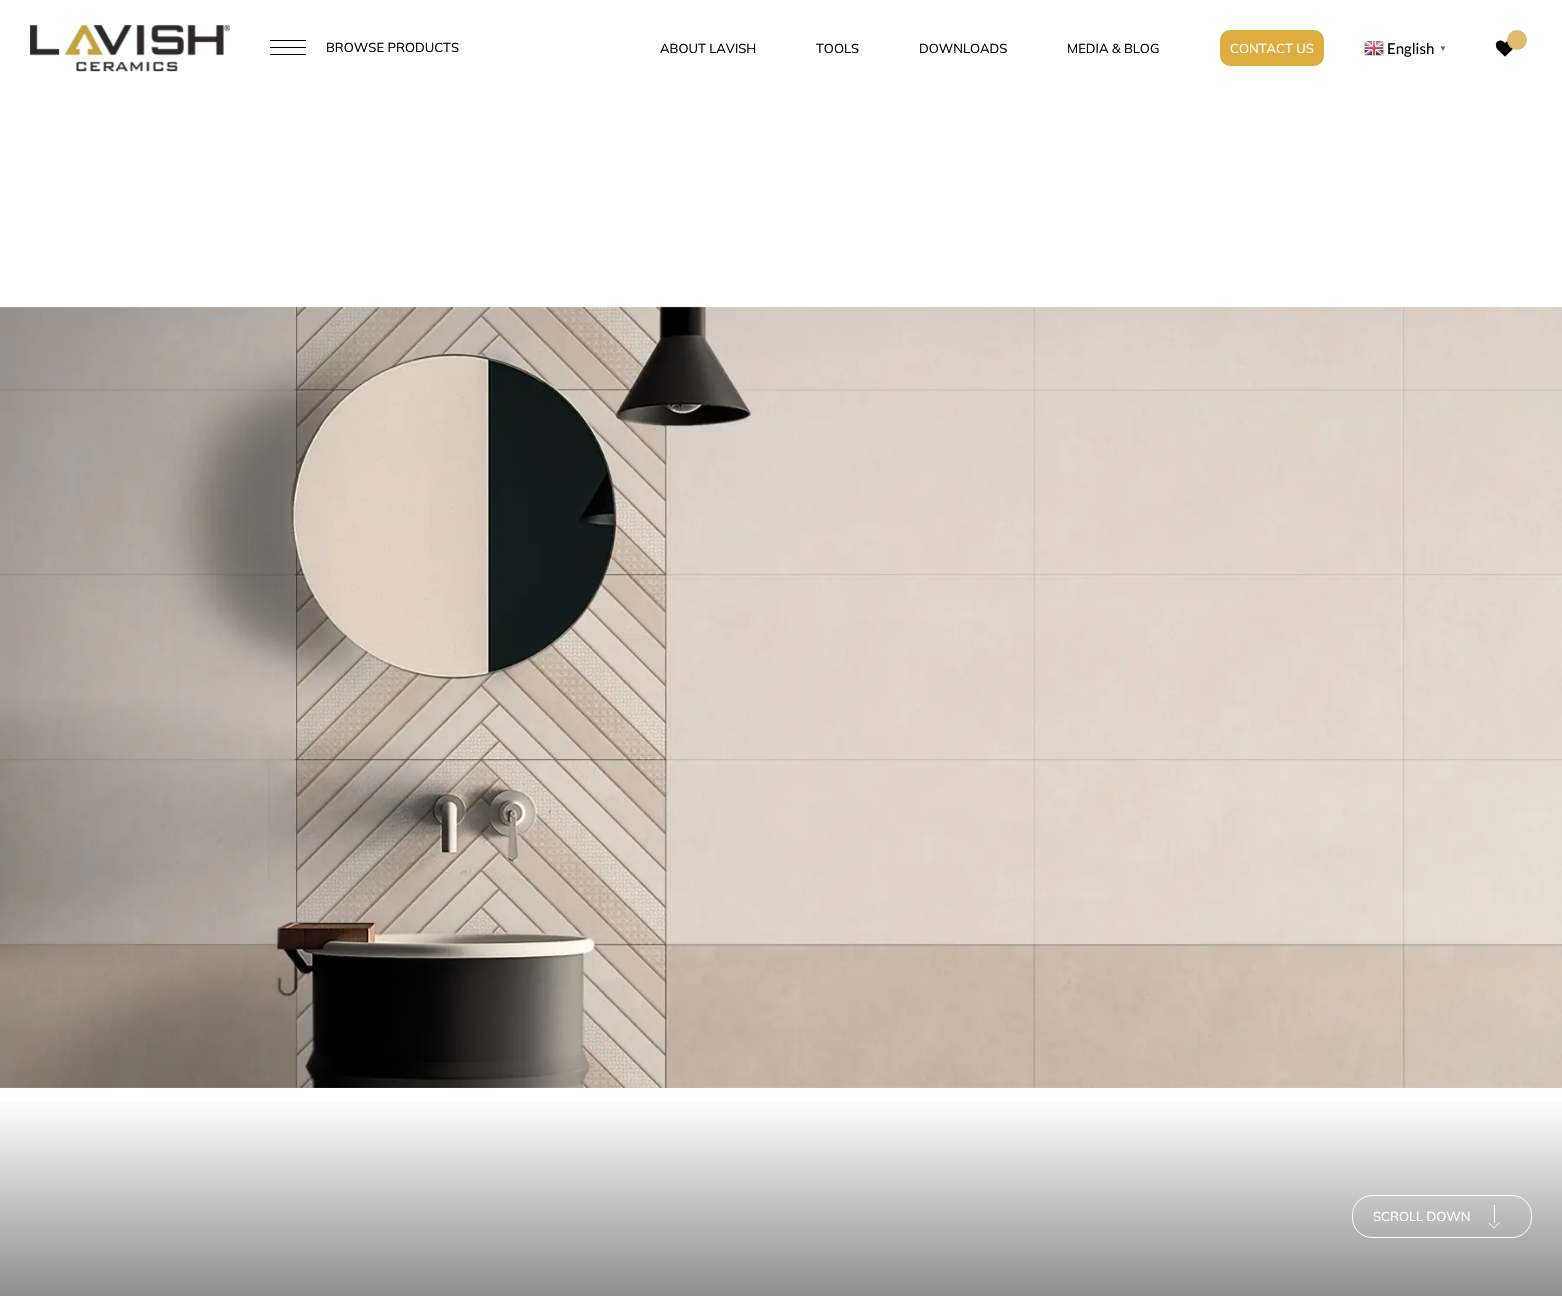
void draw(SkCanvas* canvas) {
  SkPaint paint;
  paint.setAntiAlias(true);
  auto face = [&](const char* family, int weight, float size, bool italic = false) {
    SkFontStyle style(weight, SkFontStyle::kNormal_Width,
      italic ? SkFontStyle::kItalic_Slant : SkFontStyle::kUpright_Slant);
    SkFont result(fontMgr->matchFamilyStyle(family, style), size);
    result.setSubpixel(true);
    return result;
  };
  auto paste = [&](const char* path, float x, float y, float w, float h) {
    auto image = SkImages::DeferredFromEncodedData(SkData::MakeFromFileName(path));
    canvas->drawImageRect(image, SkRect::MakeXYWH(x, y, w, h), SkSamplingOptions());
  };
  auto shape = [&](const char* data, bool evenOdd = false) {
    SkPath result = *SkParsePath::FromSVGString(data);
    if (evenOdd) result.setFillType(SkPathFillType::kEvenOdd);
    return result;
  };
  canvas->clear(0xffffffff);
  paste("img/1.png", 30, 24, 200, 48);
  {
    const struct { float x, y, w, h; SkColor color; } items[] = {
      {270, 47, 36, 1, 0xff000000},
      {270, 40, 36, 1, 0xff000000},
      {270, 54, 36, 1, 0xff000000},
    };
    for (auto [x, y, w, h, color] : items) {
      paint.setColor(color);
      canvas->drawRect(SkRect::MakeXYWH(x, y, w, h), paint);
    }
  }
  paint.setColor(0xffdead40);
  canvas->drawRoundRect(SkRect::MakeXYWH(1220, 30, 104, 36), 10, 10, paint);
  paste("img/2.png", 1364, 41, 20, 15);
  paste("img/3.png", 1495, 40, 18, 17);
  paint.setColor(0xffdfba6f);
  canvas->drawCircle(1517, 40, 10, paint);
  paste("img/4.png", 0, 306, 1562, 782);
  {
    const SkColor colors[] = {0xffffffff, 0xff8d8d8d};
    const float stops[] = {0, 1};
    const SkPoint ends[] = {{781, 1098}, {781, 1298}};
    paint.setShader(SkGradientShader::MakeLinear(ends, colors, stops, 2, SkTileMode::kClamp));
    paint.setAlpha(255);
  }
  canvas->drawRect(SkRect::MakeXYWH(0, 1102, 1562, 194), paint);
  paint.setStroke(true);
  paint.setStrokeWidth(1);
  paint.setShader(nullptr);
  paint.setColor(0xffffffff);
  canvas->drawRoundRect(SkRect::MakeXYWH(1352.5f, 1195.5f, 179, 42), 19.5f, 19.5f, paint);
  paint.setStroke(false);
  canvas->drawRect(SkRect::MakeXYWH(1494, 1205, 1, 18), paint);
  canvas->drawPath(shape("M1499.5 1223L1494 1228.5L1493.5 1228L1499 1222.5Z"), paint);
  canvas->drawPath(shape("M1494.5 1228L1494 1228.5L1488.5 1223L1489 1222.5Z"), paint);
  auto f0 = face("Mulish", 400, 13);
  paint.setColor(0xff000000);
  {
    const struct { const char* s; float x, y; } items[] = {
      {"BROWSE PRODUCTS", 326, 52},
      {"ABOUT LAVISH", 660, 53},
      {"TOOLS", 816, 53},
      {"DOWNLOADS", 919, 53},
      {"MEDIA & BLOG", 1067, 53},
    };
    for (auto [s, x, y] : items) {
      canvas->drawString(s, x, y, f0, paint);
    }
  }
  paint.setColor(0xffffffff);
  canvas->drawString("CONTACT US", 1230, 53, f0, paint);
  auto f1 = face("Lato", 400, 15);
  paint.setColor(0xff000000);
  canvas->drawString("English", 1387, 54, f1, paint);
  auto f2 = face("Liberation Sans", 700, 8);
  paint.setColor(0xff666666);
  canvas->drawString("▼", 1439, 51, f2, paint);
  paint.setColor(0xffffffff);
  canvas->drawString("SCROLL DOWN", 1373, 1221, f0, paint);
}
